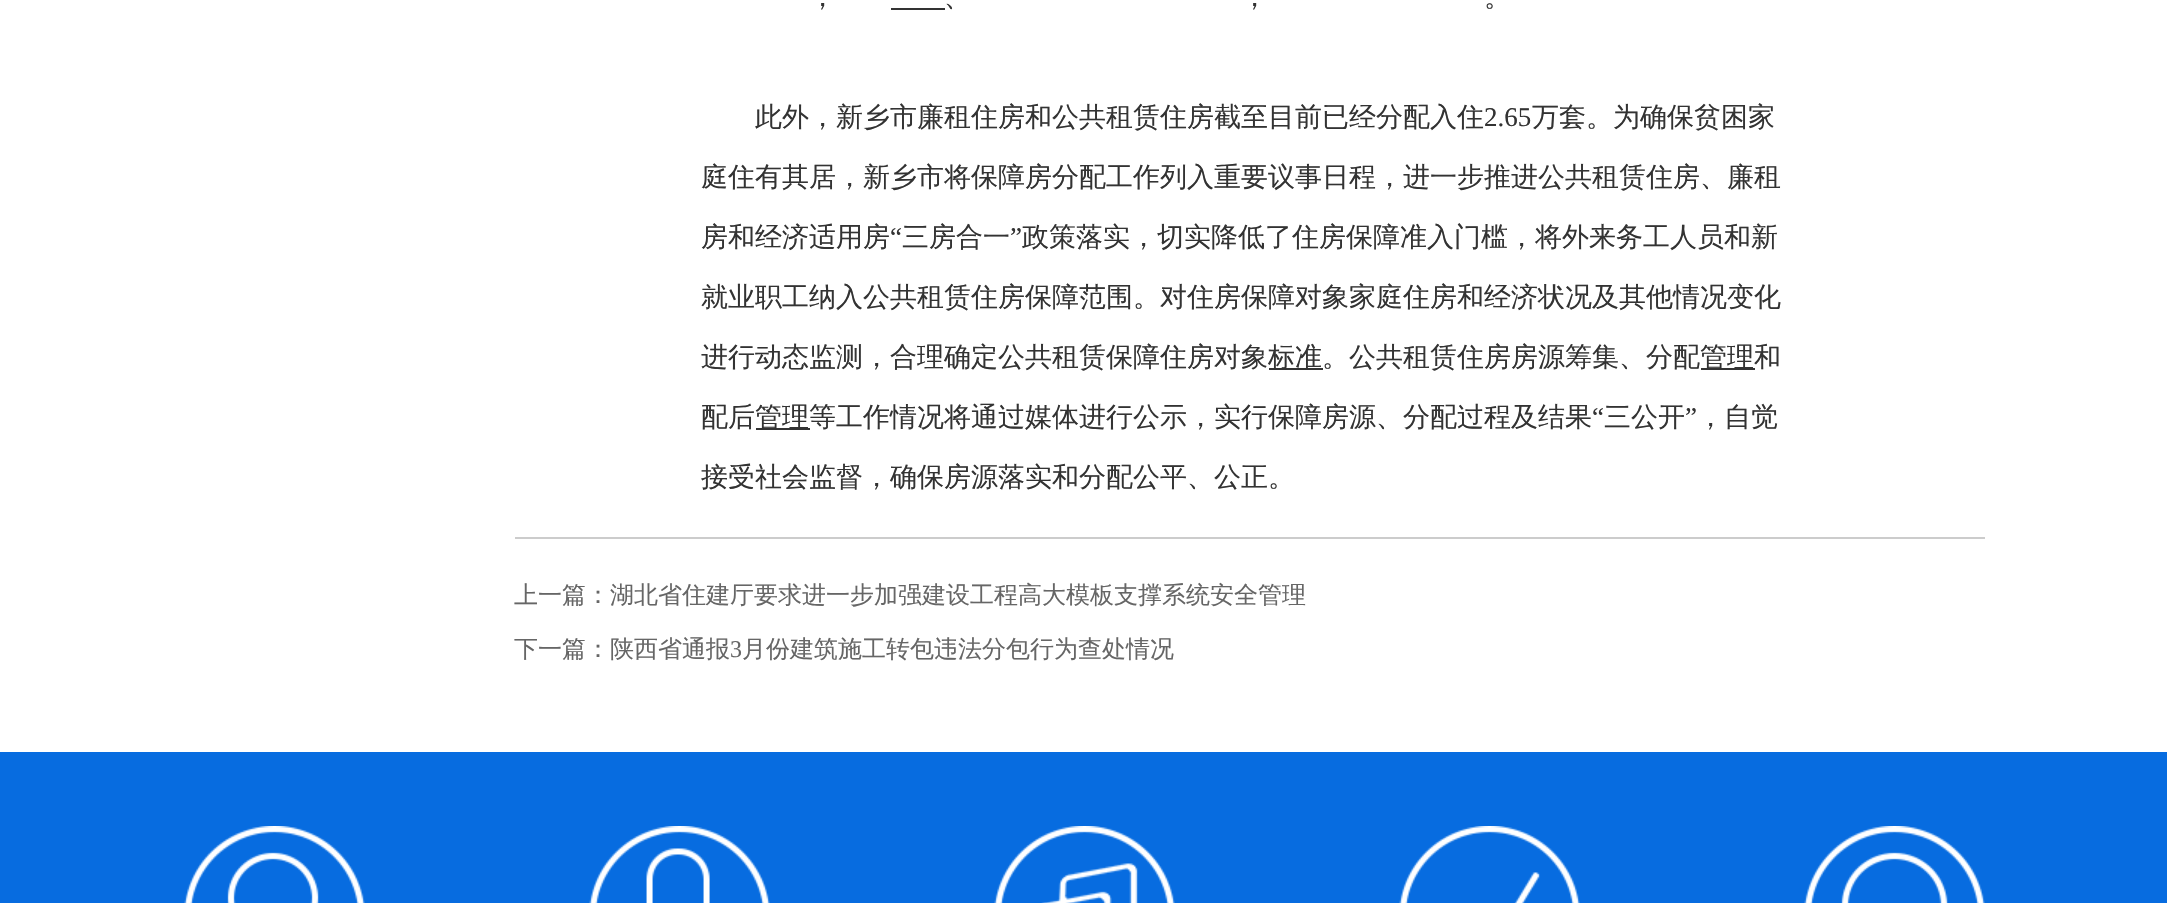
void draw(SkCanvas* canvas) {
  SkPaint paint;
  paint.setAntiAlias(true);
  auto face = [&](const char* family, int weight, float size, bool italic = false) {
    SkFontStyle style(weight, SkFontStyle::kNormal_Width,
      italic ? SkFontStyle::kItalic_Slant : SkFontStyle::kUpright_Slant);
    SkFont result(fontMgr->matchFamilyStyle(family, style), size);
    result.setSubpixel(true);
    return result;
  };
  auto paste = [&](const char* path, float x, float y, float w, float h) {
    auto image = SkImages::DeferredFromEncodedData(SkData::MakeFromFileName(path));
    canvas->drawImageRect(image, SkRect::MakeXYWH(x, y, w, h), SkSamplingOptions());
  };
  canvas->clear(0xffffffff);
  {
    const struct { float x, y, w, h; SkColor color; } items[] = {
      {891, 8, 54, 2, 0xff333333},
      {1269, 368, 54, 2, 0xff333333},
      {1701, 368, 54, 2, 0xff333333},
      {756, 428, 54, 2, 0xff333333},
      {515, 537, 1470, 2, 0xffcccccc},
      {0, 752, 2167, 151, 0xff076ce0},
    };
    for (auto [x, y, w, h, color] : items) {
      paint.setColor(color);
      canvas->drawRect(SkRect::MakeXYWH(x, y, w, h), paint);
    }
  }
  paste("img/1.png", 184, 826, 181, 77);
  paste("img/2.png", 589, 826, 181, 77);
  paste("img/3.png", 994, 826, 181, 77);
  paste("img/4.png", 1399, 826, 181, 77);
  paste("img/5.png", 1804, 826, 181, 77);
  auto f0 = face("WenQuanYi Zen Hei", 500, 27);
  paint.setColor(0xff333333);
  {
    const struct { const char* s; float x, y; } items[] = {
      {"，", 809, 6},
      {"、", 944, 6},
      {"，", 1241, 6},
      {"。", 1484, 6},
      {"此外，新乡市廉租住房和公共租赁住房截至目前已经分配入住", 755, 126},
    };
    for (auto [s, x, y] : items) {
      canvas->drawString(s, x, y, f0, paint);
    }
  }
  auto f1 = face("Liberation Serif", 400, 27);
  canvas->drawString("2.65", 1484, 126, f1, paint);
  {
    const struct { const char* s; float x, y; } items[] = {
      {"万套。为确保贫困家", 1532, 126},
      {"庭住有其居，新乡市将保障房分配工作列入重要议事日程，进一步推进公共租赁住房、廉租", 701, 186},
      {"房和经济适用房", 701, 246},
    };
    for (auto [s, x, y] : items) {
      canvas->drawString(s, x, y, f0, paint);
    }
  }
  canvas->drawString("“", 890, 246, f1, paint);
  canvas->drawString("三房合一", 902, 246, f0, paint);
  canvas->drawString("”", 1010, 246, f1, paint);
  {
    const struct { const char* s; float x, y; } items[] = {
      {"政策落实，切实降低了住房保障准入门槛，将外来务工人员和新", 1022, 246},
      {"就业职工纳入公共租赁住房保障范围。对住房保障对象家庭住房和经济状况及其他情况变化", 701, 306},
      {"进行动态监测，合理确定公共租赁保障住房对象", 701, 366},
      {"标准。公共租赁住房房源筹集、分配", 1268, 366},
      {"管理和", 1700, 366},
      {"配后", 701, 426},
      {"管理等工作情况将通过媒体进行公示，实行保障房源、分配过程及结果", 755, 426},
    };
    for (auto [s, x, y] : items) {
      canvas->drawString(s, x, y, f0, paint);
    }
  }
  canvas->drawString("“", 1592, 426, f1, paint);
  canvas->drawString("三公开", 1604, 426, f0, paint);
  canvas->drawString("”", 1685, 426, f1, paint);
  canvas->drawString("，自觉", 1697, 426, f0, paint);
  canvas->drawString("接受社会监督，确保房源落实和分配公平、公正。", 701, 486, f0, paint);
  auto f2 = face("WenQuanYi Zen Hei", 500, 24);
  paint.setColor(0xff666666);
  canvas->drawString("上一篇：湖北省住建厅要求进一步加强建设工程高大模板支撑系统安全管理", 514, 603, f2, paint);
  canvas->drawString("下一篇：陕西省通报", 514, 657, f2, paint);
  auto f3 = face("Liberation Serif", 400, 24);
  canvas->drawString("3", 730, 657, f3, paint);
  canvas->drawString("月份建筑施工转包违法分包行为查处情况", 742, 657, f2, paint);
}
